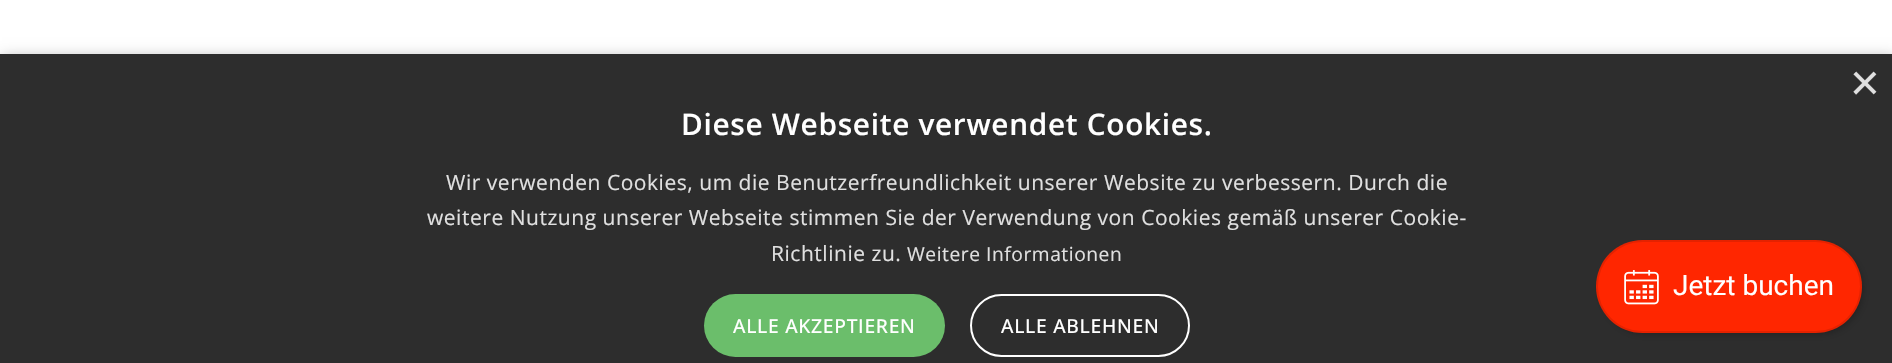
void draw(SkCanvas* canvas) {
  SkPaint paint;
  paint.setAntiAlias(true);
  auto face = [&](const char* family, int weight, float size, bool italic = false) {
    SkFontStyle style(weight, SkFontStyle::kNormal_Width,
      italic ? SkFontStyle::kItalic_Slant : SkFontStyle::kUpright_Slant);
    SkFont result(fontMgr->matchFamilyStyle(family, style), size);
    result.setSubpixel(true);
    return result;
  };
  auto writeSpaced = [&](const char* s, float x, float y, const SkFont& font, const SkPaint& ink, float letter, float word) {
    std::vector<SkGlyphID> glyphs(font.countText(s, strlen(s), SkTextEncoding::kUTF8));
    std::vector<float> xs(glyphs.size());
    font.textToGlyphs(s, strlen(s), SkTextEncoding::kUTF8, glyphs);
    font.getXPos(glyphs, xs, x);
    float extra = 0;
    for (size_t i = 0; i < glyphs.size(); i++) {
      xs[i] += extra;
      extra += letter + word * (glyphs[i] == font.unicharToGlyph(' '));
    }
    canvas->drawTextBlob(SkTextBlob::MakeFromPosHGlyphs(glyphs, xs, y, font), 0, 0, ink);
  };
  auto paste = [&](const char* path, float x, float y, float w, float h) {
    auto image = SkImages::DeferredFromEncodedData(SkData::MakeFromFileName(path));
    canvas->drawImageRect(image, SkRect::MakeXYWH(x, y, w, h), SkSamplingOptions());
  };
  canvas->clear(0xffffffff);
  paint.setColor(0x59000000);
  paint.setMaskFilter(SkMaskFilter::MakeBlur(kNormal_SkBlurStyle, 7));
  canvas->drawRect(SkRect::MakeXYWH(2, 58, 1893, 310), paint);
  paint.setMaskFilter(nullptr);
  paint.setColor(0xff2d2d2d);
  canvas->drawRect(SkRect::MakeXYWH(0, 54, 1892, 309), paint);
  paint.setColor(0xff6bbe6b);
  canvas->drawRoundRect(SkRect::MakeXYWH(704, 294, 241, 63), 31.5f, 31.5f, paint);
  paint.setStroke(true);
  paint.setStrokeWidth(2);
  paint.setColor(0xffffffff);
  canvas->drawRoundRect(SkRect::MakeXYWH(971, 295, 218, 61), 30.5f, 30.5f, paint);
  paint.setStroke(false);
  paint.setColor(0x4d000000);
  paint.setMaskFilter(SkMaskFilter::MakeBlur(kNormal_SkBlurStyle, 4.5f));
  canvas->drawRoundRect(SkRect::MakeXYWH(1603, 247, 259, 86), 43, 43, paint);
  paint.setMaskFilter(nullptr);
  paint.setColor(0xffff2600);
  canvas->drawRoundRect(SkRect::MakeXYWH(1596, 240, 266, 93), 46.5f, 46.5f, paint);
  paint.setStroke(true);
  paint.setColor(0x1a000000);
  canvas->drawRoundRect(SkRect::MakeXYWH(1597, 241, 264, 91), 45.5f, 45.5f, paint);
  paste("img/1.png", 1624, 270, 35, 35);
  auto f0 = face("Liberation Sans", 400, 51);
  paint.setStroke(false);
  paint.setColor(0xffe0e0e0);
  canvas->drawString("×", 1850, 100, f0, paint);
  auto f1 = face("Open Sans", 600, 29.75f);
  paint.setColor(0xffffffff);
  writeSpaced("Diese Webseite verwendet Cookies.", 681, 135, f1, paint, 0.7f, 0);
  auto f2 = face("Open Sans", 400, 21);
  paint.setColor(0xffe0e0e0);
  {
    const struct { const char* s; float x, y; } items[] = {
      {"Wir verwenden Cookies, um die Benutzerfreundlichkeit unserer Website zu verbessern. Durch die", 446, 190},
      {"weitere Nutzung unserer Webseite stimmen Sie der Verwendung von Cookies gemäß unserer Cookie-", 427, 225},
      {"Richtlinie zu.", 771, 261},
    };
    for (auto [s, x, y] : items) {
      writeSpaced(s, x, y, f2, paint, 0.53f, 0);
    }
  }
  auto f3 = face("Open Sans", 400, 19.25f);
  writeSpaced("Weitere Informationen", 907, 261, f3, paint, 0.53f, 0);
  auto f4 = face("Open Sans", 500, 19.25f);
  paint.setColor(0xffffffff);
  writeSpaced("ALLE AKZEPTIEREN", 733, 333, f4, paint, 0.7f, 0);
  writeSpaced("ALLE ABLEHNEN", 1001, 333, f4, paint, 0.7f, 0);
  auto f5 = face("Roboto", 400, 28);
  canvas->drawString("Jetzt buchen", 1673, 295, f5, paint);
}
